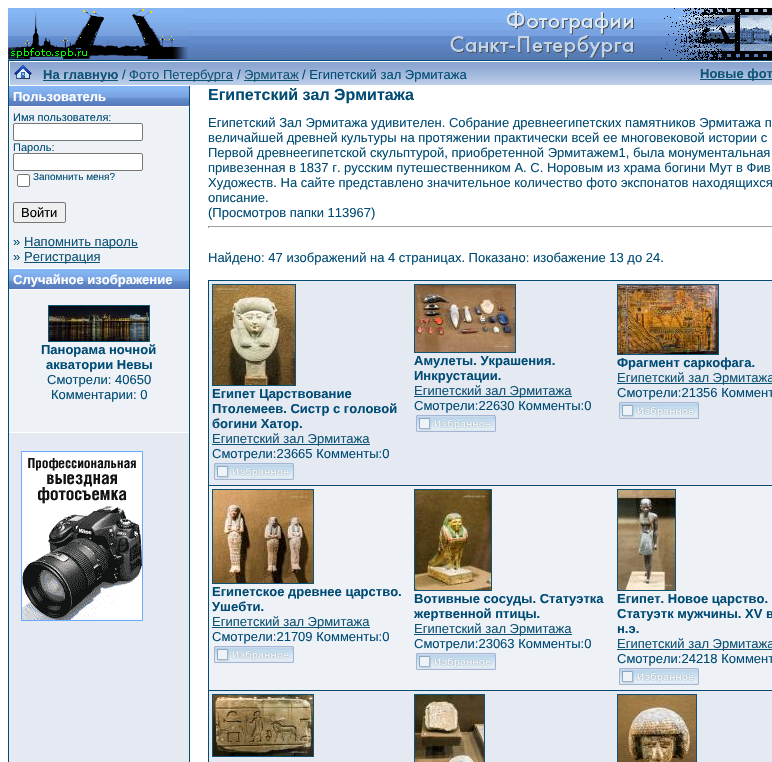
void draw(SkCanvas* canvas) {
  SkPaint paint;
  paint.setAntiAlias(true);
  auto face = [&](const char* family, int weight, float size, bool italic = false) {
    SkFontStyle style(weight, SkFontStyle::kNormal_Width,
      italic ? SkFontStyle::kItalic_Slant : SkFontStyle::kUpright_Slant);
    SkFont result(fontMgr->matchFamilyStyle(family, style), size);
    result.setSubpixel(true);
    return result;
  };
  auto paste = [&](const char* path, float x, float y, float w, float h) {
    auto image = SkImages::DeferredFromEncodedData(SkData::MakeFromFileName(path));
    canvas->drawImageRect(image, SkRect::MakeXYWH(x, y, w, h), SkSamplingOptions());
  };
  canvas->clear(0xffffffff);
  paste("img/1.png", 8, 8, 764, 52);
  paste("img/2.png", 8, 9, 180, 50);
  paint.setColor(0xff004c75);
  canvas->drawRect(SkRect::MakeXYWH(8, 60, 764, 702), paint);
  paint.setColor(0xffffffff);
  canvas->drawRect(SkRect::MakeXYWH(9, 61, 763, 701), paint);
  paste("img/3.png", 10, 62, 762, 23);
  paste("img/4.png", 14, 65, 18, 14);
  {
    const struct { float x, y, w, h; SkColor color; } items[] = {
      {43, 80, 75, 1, 0xff0f5475},
      {129, 80, 104, 1, 0xff0f5475},
      {244, 80, 55, 1, 0xff0f5475},
      {700, 79, 72, 1, 0xff0f5475},
      {9, 433, 180, 329, 0xffe5e9f2},
    };
    for (auto [x, y, w, h, color] : items) {
      paint.setColor(color);
      canvas->drawRect(SkRect::MakeXYWH(x, y, w, h), paint);
    }
  }
  paste("img/5.png", 9, 86, 180, 20);
  paint.setColor(0xffeef1f6);
  canvas->drawRect(SkRect::MakeXYWH(9, 107, 180, 161), paint);
  paint.setColor(0xffffffff);
  canvas->drawRoundRect(SkRect::MakeXYWH(13.5f, 123.5f, 129, 17), 1.5f, 1.5f, paint);
  paint.setStroke(true);
  paint.setStrokeWidth(1);
  paint.setColor(0xff767676);
  canvas->drawRoundRect(SkRect::MakeXYWH(13.5f, 123.5f, 129, 17), 1.5f, 1.5f, paint);
  paint.setStroke(false);
  paint.setColor(0xffffffff);
  canvas->drawRoundRect(SkRect::MakeXYWH(17.5f, 174.5f, 12, 12), 1.5f, 1.5f, paint);
  paint.setStroke(true);
  paint.setColor(0xff767676);
  canvas->drawRoundRect(SkRect::MakeXYWH(17.5f, 174.5f, 12, 12), 1.5f, 1.5f, paint);
  paint.setStroke(false);
  paint.setColor(0xffefefef);
  canvas->drawRoundRect(SkRect::MakeXYWH(13.5f, 202.5f, 52, 20), 1.5f, 1.5f, paint);
  paint.setStroke(true);
  paint.setColor(0xff767676);
  canvas->drawRoundRect(SkRect::MakeXYWH(13.5f, 202.5f, 52, 20), 1.5f, 1.5f, paint);
  paint.setStroke(false);
  paint.setColor(0xff0f5475);
  canvas->drawRect(SkRect::MakeXYWH(24, 247, 114, 1), paint);
  canvas->drawRect(SkRect::MakeXYWH(24, 262, 76, 1), paint);
  paste("img/5.png", 9, 269, 180, 20);
  paint.setColor(0xffeef1f6);
  canvas->drawRect(SkRect::MakeXYWH(9, 290, 180, 142), paint);
  paint.setStroke(true);
  paint.setColor(0xff0f5475);
  canvas->drawRect(SkRect::MakeXYWH(48.5f, 305.5f, 101, 36), paint);
  paste("img/6.png", 49, 306, 100, 35);
  paste("img/7.png", 21, 451, 122, 170);
  paint.setStroke(false);
  {
    const struct { float x, y, w, h; SkColor color; } items[] = {
      {189, 86, 1, 676, 0xff004c75},
      {208, 226, 564, 1, 0xff9f9f9f},
      {208, 226, 1, 2, 0xff9f9f9f},
      {208, 280, 564, 482, 0xff004c75},
      {209, 281, 563, 204, 0xffe5e9f2},
    };
    for (auto [x, y, w, h, color] : items) {
      paint.setColor(color);
      canvas->drawRect(SkRect::MakeXYWH(x, y, w, h), paint);
    }
  }
  paint.setStroke(true);
  paint.setColor(0xff0f5475);
  canvas->drawRect(SkRect::MakeXYWH(414.5f, 284.5f, 101, 68), paint);
  paste("img/8.png", 415, 285, 100, 67);
  paint.setStroke(false);
  canvas->drawRect(SkRect::MakeXYWH(414, 396, 158, 1), paint);
  paste("img/9.png", 416, 415, 80, 17);
  paint.setStroke(true);
  canvas->drawRect(SkRect::MakeXYWH(617.5f, 284.5f, 101, 70), paint);
  paste("img/10.png", 618, 285, 100, 69);
  paint.setStroke(false);
  canvas->drawRect(SkRect::MakeXYWH(617, 383, 155, 1), paint);
  paste("img/9.png", 619, 402, 80, 17);
  paint.setStroke(true);
  canvas->drawRect(SkRect::MakeXYWH(212.5f, 284.5f, 83, 101), paint);
  paste("img/11.png", 213, 285, 82, 100);
  paint.setStroke(false);
  canvas->drawRect(SkRect::MakeXYWH(212, 444, 158, 1), paint);
  paste("img/9.png", 214, 463, 80, 17);
  paint.setColor(0xffeef1f6);
  canvas->drawRect(SkRect::MakeXYWH(209, 486, 563, 204), paint);
  paint.setStroke(true);
  paint.setColor(0xff0f5475);
  canvas->drawRect(SkRect::MakeXYWH(212.5f, 489.5f, 101, 94), paint);
  paste("img/12.png", 213, 490, 100, 93);
  paint.setStroke(false);
  canvas->drawRect(SkRect::MakeXYWH(212, 627, 158, 1), paint);
  paste("img/9.png", 214, 646, 80, 17);
  paint.setStroke(true);
  canvas->drawRect(SkRect::MakeXYWH(414.5f, 489.5f, 77, 101), paint);
  paste("img/13.png", 415, 490, 76, 100);
  paint.setStroke(false);
  canvas->drawRect(SkRect::MakeXYWH(414, 634, 158, 1), paint);
  paste("img/9.png", 416, 653, 80, 17);
  paint.setStroke(true);
  canvas->drawRect(SkRect::MakeXYWH(617.5f, 489.5f, 58, 101), paint);
  paste("img/14.png", 618, 490, 57, 100);
  paint.setStroke(false);
  canvas->drawRect(SkRect::MakeXYWH(617, 649, 155, 1), paint);
  paste("img/9.png", 619, 668, 80, 17);
  paint.setColor(0xffe5e9f2);
  canvas->drawRect(SkRect::MakeXYWH(209, 691, 563, 71), paint);
  paint.setStroke(true);
  paint.setColor(0xff0f5475);
  canvas->drawRect(SkRect::MakeXYWH(212.5f, 694.5f, 101, 62), paint);
  paste("img/15.png", 213, 695, 100, 61);
  canvas->drawRect(SkRect::MakeXYWH(414.5f, 694.5f, 70, 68), paint);
  paste("img/16.png", 415, 695, 69, 67);
  canvas->drawRect(SkRect::MakeXYWH(617.5f, 694.5f, 79, 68), paint);
  paste("img/17.png", 618, 695, 78, 67);
  auto f0 = face("Liberation Sans", 700, 13);
  paint.setStroke(false);
  canvas->drawString("На главную", 43, 79, f0, paint);
  auto f1 = face("Liberation Sans", 400, 13);
  paint.setColor(0xff004c75);
  canvas->drawString("/", 122, 79, f1, paint);
  paint.setColor(0xff0f5475);
  canvas->drawString("Фото Петербурга", 129, 79, f1, paint);
  paint.setColor(0xff004c75);
  canvas->drawString("/", 237, 79, f1, paint);
  paint.setColor(0xff0f5475);
  canvas->drawString("Эрмитаж", 244, 79, f1, paint);
  paint.setColor(0xff004c75);
  canvas->drawString("/ Египетский зал Эрмитажа", 302, 79, f1, paint);
  paint.setColor(0xff0f5475);
  canvas->drawString("Новые фот", 700, 78, f0, paint);
  paint.setColor(0xffffffff);
  canvas->drawString("Пользователь", 13, 101, f0, paint);
  auto f2 = face("Liberation Sans", 400, 11);
  paint.setColor(0xff004c75);
  canvas->drawString("Имя пользователя:", 13, 121, f2, paint);
  canvas->drawString("Пароль:", 13, 151, f2, paint);
  paint.setColor(0xffffffff);
  canvas->drawRoundRect(SkRect::MakeXYWH(13.5f, 153.5f, 129, 17), 1.5f, 1.5f, paint);
  paint.setStroke(true);
  paint.setColor(0xff767676);
  canvas->drawRoundRect(SkRect::MakeXYWH(13.5f, 153.5f, 129, 17), 1.5f, 1.5f, paint);
  auto f3 = face("Liberation Sans", 400, 10);
  paint.setStroke(false);
  paint.setColor(0xff004c75);
  canvas->drawString("Запомнить меня?", 33, 180, f3, paint);
  paint.setColor(0xff000000);
  canvas->drawString("Войти", 21, 217, f1, paint);
  paint.setColor(0xff004c75);
  canvas->drawString("»", 13, 246, f1, paint);
  paint.setColor(0xff0f5475);
  canvas->drawString("Напомнить пароль", 24, 246, f1, paint);
  paint.setColor(0xff004c75);
  canvas->drawString("»", 13, 261, f1, paint);
  paint.setColor(0xff0f5475);
  canvas->drawString("Регистрация", 24, 261, f1, paint);
  paint.setColor(0xffffffff);
  canvas->drawString("Случайное изображение", 13, 284, f0, paint);
  paint.setColor(0xff004c75);
  canvas->drawString("Панорама ночной", 41, 354, f0, paint);
  canvas->drawString("акватории Невы", 46, 369, f0, paint);
  canvas->drawString("Смотрели: 40650", 47, 384, f1, paint);
  canvas->drawString("Комментарии: 0", 51, 399, f1, paint);
  auto f4 = face("Liberation Sans", 700, 16);
  canvas->drawString("Египетский зал Эрмитажа", 208, 100, f4, paint);
  {
    const struct { const char* s; float x, y; } items[] = {
      {"Египетский Зал Эрмитажа удивителен. Собрание древнеегипетских памятников Эрмитажа п", 208, 127},
      {"величайшей древней культуры на протяжении практически всей ее многовековой истории с", 208, 142},
      {"Первой древнеегипетской скульптурой, приобретенной Эрмитажем1, была монументальная", 208, 157},
      {"привезенная в 1837 г. русским путешественником А. С. Норовым из храма богини Мут в Фив", 208, 172},
      {"Художеств. На сайте представлено значительное количество фото экспонатов находящихся", 208, 187},
      {"описание.", 208, 202},
      {"(Просмотров папки 113967)", 208, 217},
      {"Найдено: 47 изображений на 4 страницах. Показано: изобажение 13 до 24.", 208, 262},
    };
    for (auto [s, x, y] : items) {
      canvas->drawString(s, x, y, f1, paint);
    }
  }
  canvas->drawString("Амулеты. Украшения.", 414, 365, f0, paint);
  canvas->drawString("Инкрустации.", 414, 380, f0, paint);
  paint.setColor(0xff0f5475);
  canvas->drawString("Египетский зал Эрмитажа", 414, 395, f1, paint);
  paint.setColor(0xff004c75);
  canvas->drawString("Смотрели:22630 Комменты:0", 414, 410, f1, paint);
  canvas->drawString("Фрагмент саркофага.", 617, 367, f0, paint);
  paint.setColor(0xff0f5475);
  canvas->drawString("Египетский зал Эрмитажа", 617, 382, f1, paint);
  paint.setColor(0xff004c75);
  canvas->drawString("Смотрели:21356 Коммент", 617, 397, f1, paint);
  {
    const struct { const char* s; float x, y; } items[] = {
      {"Египет Царствование", 212, 398},
      {"Птолемеев. Систр с головой", 212, 413},
      {"богини Хатор.", 212, 428},
    };
    for (auto [s, x, y] : items) {
      canvas->drawString(s, x, y, f0, paint);
    }
  }
  paint.setColor(0xff0f5475);
  canvas->drawString("Египетский зал Эрмитажа", 212, 443, f1, paint);
  paint.setColor(0xff004c75);
  canvas->drawString("Смотрели:23665 Комменты:0", 212, 458, f1, paint);
  canvas->drawString("Египетское древнее царство.", 212, 596, f0, paint);
  canvas->drawString("Ушебти.", 212, 611, f0, paint);
  paint.setColor(0xff0f5475);
  canvas->drawString("Египетский зал Эрмитажа", 212, 626, f1, paint);
  paint.setColor(0xff004c75);
  canvas->drawString("Смотрели:21709 Комменты:0", 212, 641, f1, paint);
  canvas->drawString("Вотивные сосуды. Статуэтка", 414, 603, f0, paint);
  canvas->drawString("жертвенной птицы.", 414, 618, f0, paint);
  paint.setColor(0xff0f5475);
  canvas->drawString("Египетский зал Эрмитажа", 414, 633, f1, paint);
  paint.setColor(0xff004c75);
  canvas->drawString("Смотрели:23063 Комменты:0", 414, 648, f1, paint);
  {
    const struct { const char* s; float x, y; } items[] = {
      {"Египет. Новое царство.", 617, 603},
      {"Статуэтк мужчины. XV в", 617, 618},
      {"н.э.", 617, 633},
    };
    for (auto [s, x, y] : items) {
      canvas->drawString(s, x, y, f0, paint);
    }
  }
  paint.setColor(0xff0f5475);
  canvas->drawString("Египетский зал Эрмитажа", 617, 648, f1, paint);
  paint.setColor(0xff004c75);
  canvas->drawString("Смотрели:24218 Коммент", 617, 663, f1, paint);
}
